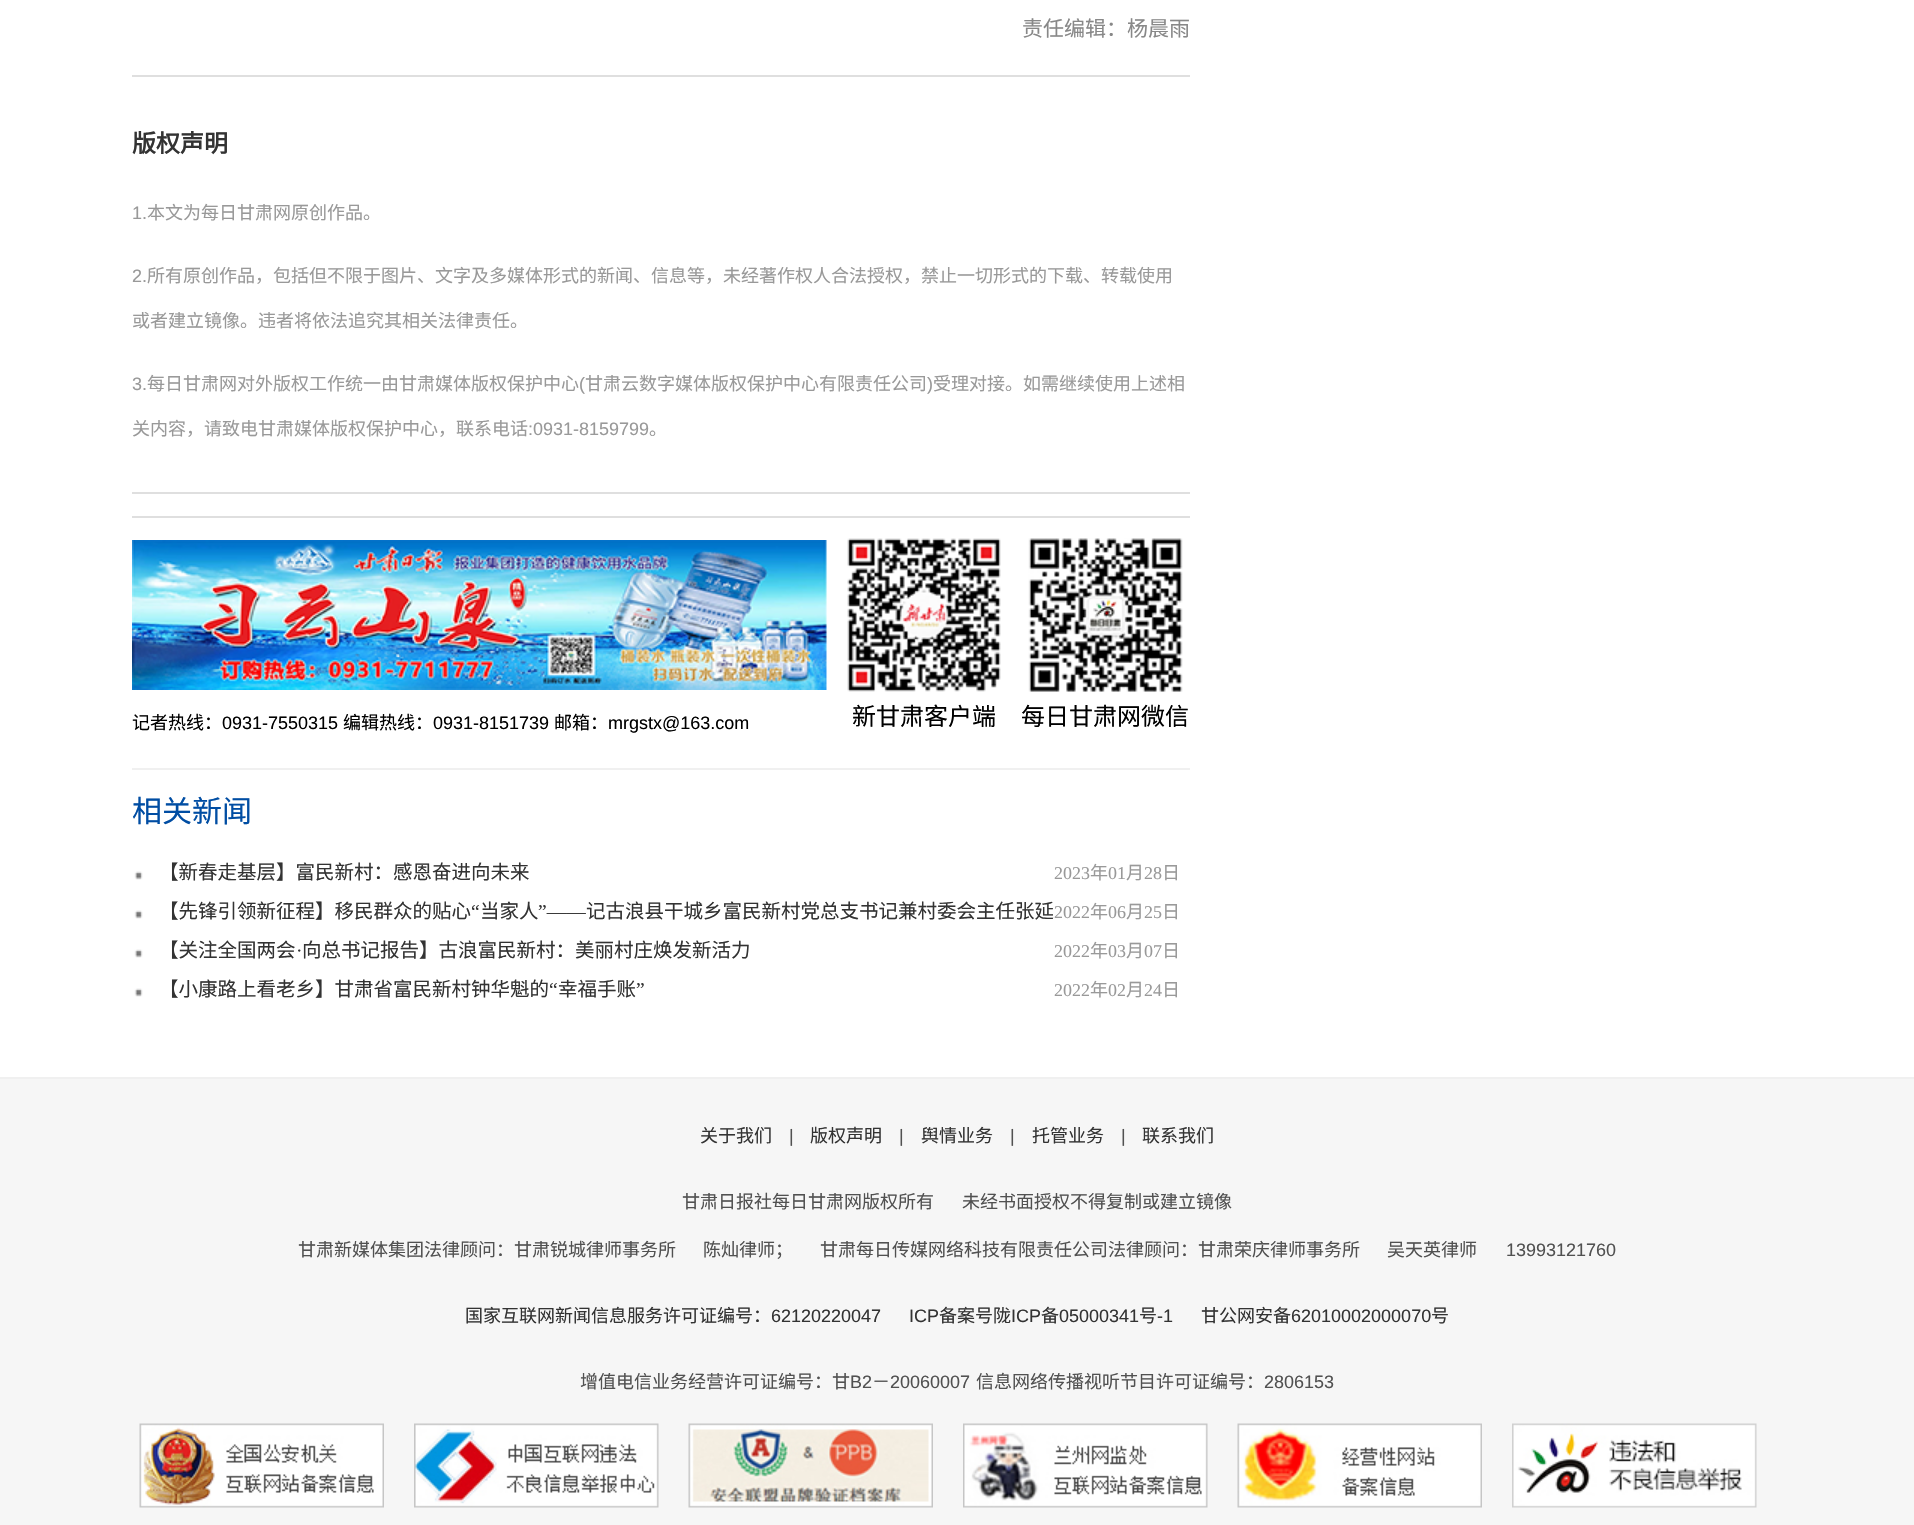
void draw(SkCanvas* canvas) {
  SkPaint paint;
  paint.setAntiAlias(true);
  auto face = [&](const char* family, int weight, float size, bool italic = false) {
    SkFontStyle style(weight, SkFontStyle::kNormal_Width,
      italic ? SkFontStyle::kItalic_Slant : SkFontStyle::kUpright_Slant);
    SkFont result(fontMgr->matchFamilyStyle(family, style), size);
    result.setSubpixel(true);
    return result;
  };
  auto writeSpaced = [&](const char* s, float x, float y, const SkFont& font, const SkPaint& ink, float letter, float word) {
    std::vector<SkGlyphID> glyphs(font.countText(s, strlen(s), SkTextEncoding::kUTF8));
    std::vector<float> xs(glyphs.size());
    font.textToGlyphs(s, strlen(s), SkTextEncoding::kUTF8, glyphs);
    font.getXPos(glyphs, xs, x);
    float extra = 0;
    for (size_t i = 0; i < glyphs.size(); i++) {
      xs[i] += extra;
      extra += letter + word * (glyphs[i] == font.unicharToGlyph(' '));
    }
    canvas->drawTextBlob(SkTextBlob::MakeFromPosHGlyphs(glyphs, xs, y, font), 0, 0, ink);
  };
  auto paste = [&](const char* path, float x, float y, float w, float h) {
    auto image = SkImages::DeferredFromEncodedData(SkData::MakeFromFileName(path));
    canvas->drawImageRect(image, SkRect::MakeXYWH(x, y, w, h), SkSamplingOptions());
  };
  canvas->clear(0xffffffff);
  {
    const struct { float x, y, w, h; SkColor color; } items[] = {
      {132, 75, 1058, 2, 0xffdfdfdf},
      {132, 492, 1058, 2, 0xffdfdfdf},
      {132, 516, 1058, 2, 0xffdfdfdf},
    };
    for (auto [x, y, w, h, color] : items) {
      paint.setColor(color);
      canvas->drawRect(SkRect::MakeXYWH(x, y, w, h), paint);
    }
  }
  paste("img/1.png", 132, 540, 695, 150);
  paste("img/2.png", 847, 538, 154, 154);
  paste("img/3.png", 1028, 538, 155, 154);
  paint.setColor(0xfff0f0f0);
  canvas->drawRect(SkRect::MakeXYWH(132, 768, 1058, 2), paint);
  paste("img/4.png", 134, 871, 9, 9);
  paste("img/4.png", 134, 910, 9, 9);
  paste("img/4.png", 134, 949, 9, 9);
  paste("img/4.png", 134, 988, 9, 9);
  paint.setColor(0xfff6f6f6);
  canvas->drawRect(SkRect::MakeXYWH(0, 1079, 1914, 446), paint);
  paint.setColor(0xfff0f0f0);
  canvas->drawRect(SkRect::MakeXYWH(0, 1077, 1914, 2), paint);
  paste("img/5.png", 139, 1423, 245, 85);
  paste("img/6.png", 414, 1423, 245, 85);
  paste("img/7.png", 688, 1423, 245, 85);
  paste("img/8.png", 963, 1423, 245, 85);
  paste("img/9.png", 1237, 1423, 245, 85);
  paste("img/10.png", 1512, 1423, 245, 85);
  auto f0 = face("Noto Sans CJK SC", 400, 21);
  paint.setColor(0xff888888);
  canvas->drawString("责任编辑：杨晨雨", 1022, 36, f0, paint);
  auto f1 = face("Noto Sans CJK SC", 700, 24);
  paint.setColor(0xff333333);
  canvas->drawString("版权声明", 132, 152, f1, paint);
  auto f2 = face("Liberation Sans", 400, 18);
  paint.setColor(0xff999999);
  canvas->drawString("1.", 132, 219, f2, paint);
  auto f3 = face("Noto Sans CJK SC", 400, 18);
  canvas->drawString("本文为每日甘肃网原创作品。", 147, 219, f3, paint);
  canvas->drawString("2.", 132, 282, f2, paint);
  canvas->drawString("所有原创作品，包括但不限于图片、文字及多媒体形式的新闻、信息等，未经著作权人合法授权，禁止一切形式的下载、转载使用", 147, 282, f3, paint);
  canvas->drawString("或者建立镜像。违者将依法追究其相关法律责任。", 132, 327, f3, paint);
  canvas->drawString("3.", 132, 390, f2, paint);
  canvas->drawString("每日甘肃网对外版权工作统一由甘肃媒体版权保护中心", 147, 390, f3, paint);
  canvas->drawString("(", 579, 390, f2, paint);
  canvas->drawString("甘肃云数字媒体版权保护中心有限责任公司", 585, 390, f3, paint);
  canvas->drawString(")", 927, 390, f2, paint);
  canvas->drawString("受理对接。如需继续使用上述相", 933, 390, f3, paint);
  canvas->drawString("关内容，请致电甘肃媒体版权保护中心，联系电话", 132, 435, f3, paint);
  canvas->drawString(":0931-8159799", 528, 435, f2, paint);
  canvas->drawString("。", 649, 435, f3, paint);
  paint.setColor(0xff000000);
  canvas->drawString("记者热线：", 132, 729, f3, paint);
  canvas->drawString("0931-7550315", 222, 729, f2, paint);
  canvas->drawString("编辑热线：", 343, 729, f3, paint);
  canvas->drawString("0931-8151739", 433, 729, f2, paint);
  canvas->drawString("邮箱：", 554, 729, f3, paint);
  canvas->drawString("mrgstx@163.com", 608, 729, f2, paint);
  auto f4 = face("Noto Sans CJK SC", 400, 24);
  canvas->drawString("新甘肃客户端", 852, 725, f4, paint);
  canvas->drawString("每日甘肃网微信", 1021, 725, f4, paint);
  auto f5 = face("Noto Sans CJK SC", 400, 30);
  paint.setColor(0xff004da3);
  canvas->drawString("相关新闻", 132, 822, f5, paint);
  auto f6 = face("Noto Sans CJK SC", 400, 19.5f);
  paint.setColor(0xff333333);
  canvas->drawString("【新春走基层】富民新村：感恩奋进向未来", 159, 879, f6, paint);
  auto f7 = face("Liberation Serif", 400, 18);
  paint.setColor(0xff999999);
  canvas->drawString("2023", 1054, 879, f7, paint);
  canvas->drawString("年", 1090, 879, f3, paint);
  canvas->drawString("01", 1108, 879, f7, paint);
  canvas->drawString("月", 1126, 879, f3, paint);
  canvas->drawString("28", 1144, 879, f7, paint);
  canvas->drawString("日", 1162, 879, f3, paint);
  paint.setColor(0xff333333);
  canvas->drawString("【先锋引领新征程】移民群众的贴心", 159, 918, f6, paint);
  auto f8 = face("Liberation Serif", 400, 19.5f);
  canvas->drawString("“", 471, 918, f8, paint);
  canvas->drawString("当家人", 480, 918, f6, paint);
  canvas->drawString("”——", 538, 918, f8, paint);
  canvas->drawString("记古浪县干城乡富民新村党总支书记兼村委会主任张延", 586, 918, f6, paint);
  paint.setColor(0xff999999);
  canvas->drawString("2022", 1054, 918, f7, paint);
  canvas->drawString("年", 1090, 918, f3, paint);
  canvas->drawString("06", 1108, 918, f7, paint);
  canvas->drawString("月", 1126, 918, f3, paint);
  canvas->drawString("25", 1144, 918, f7, paint);
  canvas->drawString("日", 1162, 918, f3, paint);
  paint.setColor(0xff333333);
  canvas->drawString("【关注全国两会", 159, 957, f6, paint);
  canvas->drawString("·", 296, 957, f8, paint);
  canvas->drawString("向总书记报告】古浪富民新村：美丽村庄焕发新活力", 302, 957, f6, paint);
  paint.setColor(0xff999999);
  canvas->drawString("2022", 1054, 957, f7, paint);
  canvas->drawString("年", 1090, 957, f3, paint);
  canvas->drawString("03", 1108, 957, f7, paint);
  canvas->drawString("月", 1126, 957, f3, paint);
  canvas->drawString("07", 1144, 957, f7, paint);
  canvas->drawString("日", 1162, 957, f3, paint);
  paint.setColor(0xff333333);
  canvas->drawString("【小康路上看老乡】甘肃省富民新村钟华魁的", 159, 996, f6, paint);
  canvas->drawString("“", 549, 996, f8, paint);
  canvas->drawString("幸福手账", 558, 996, f6, paint);
  canvas->drawString("”", 636, 996, f8, paint);
  paint.setColor(0xff999999);
  canvas->drawString("2022", 1054, 996, f7, paint);
  canvas->drawString("年", 1090, 996, f3, paint);
  canvas->drawString("02", 1108, 996, f7, paint);
  canvas->drawString("月", 1126, 996, f3, paint);
  canvas->drawString("24", 1144, 996, f7, paint);
  canvas->drawString("日", 1162, 996, f3, paint);
  paint.setColor(0xff333333);
  canvas->drawString("关于我们", 700, 1142, f3, paint);
  paint.setColor(0xff515151);
  canvas->drawString("|", 789, 1142, f2, paint);
  paint.setColor(0xff333333);
  canvas->drawString("版权声明", 810, 1142, f3, paint);
  paint.setColor(0xff515151);
  canvas->drawString("|", 899, 1142, f2, paint);
  paint.setColor(0xff333333);
  canvas->drawString("舆情业务", 921, 1142, f3, paint);
  paint.setColor(0xff515151);
  canvas->drawString("|", 1010, 1142, f2, paint);
  paint.setColor(0xff333333);
  canvas->drawString("托管业务", 1032, 1142, f3, paint);
  paint.setColor(0xff515151);
  canvas->drawString("|", 1121, 1142, f2, paint);
  paint.setColor(0xff333333);
  canvas->drawString("联系我们", 1142, 1142, f3, paint);
  paint.setColor(0xff515151);
  canvas->drawString("甘肃日报社每日甘肃网版权所有", 682, 1208, f3, paint);
  canvas->drawString("未经书面授权不得复制或建立镜像", 962, 1208, f3, paint);
  writeSpaced("甘肃新媒体集团法律顾问：甘肃锐城律师事务所 陈灿律师； 甘肃每日传媒网络科技有限责任公司法律顾问：甘肃荣庆律师事务所 吴天英律师", 298, 1256, f3, paint, 0, 23);
  canvas->drawString("13993121760", 1506, 1256, f2, paint);
  paint.setColor(0xff333333);
  canvas->drawString("国家互联网新闻信息服务许可证编号：", 465, 1322, f3, paint);
  canvas->drawString("62120220047", 771, 1322, f2, paint);
  canvas->drawString("ICP", 909, 1322, f2, paint);
  canvas->drawString("备案号陇", 939, 1322, f3, paint);
  canvas->drawString("ICP", 1011, 1322, f2, paint);
  canvas->drawString("备", 1041, 1322, f3, paint);
  canvas->drawString("05000341", 1059, 1322, f2, paint);
  canvas->drawString("号", 1139, 1322, f3, paint);
  canvas->drawString("-1", 1157, 1322, f2, paint);
  canvas->drawString("甘公网安备", 1201, 1322, f3, paint);
  canvas->drawString("62010002000070", 1291, 1322, f2, paint);
  canvas->drawString("号", 1431, 1322, f3, paint);
  paint.setColor(0xff515151);
  canvas->drawString("增值电信业务经营许可证编号：甘", 580, 1388, f3, paint);
  canvas->drawString("B2", 850, 1388, f2, paint);
  canvas->drawString("－", 872, 1388, f3, paint);
  canvas->drawString("20060007", 890, 1388, f2, paint);
  canvas->drawString("信息网络传播视听节目许可证编号：", 976, 1388, f3, paint);
  canvas->drawString("2806153", 1264, 1388, f2, paint);
}
